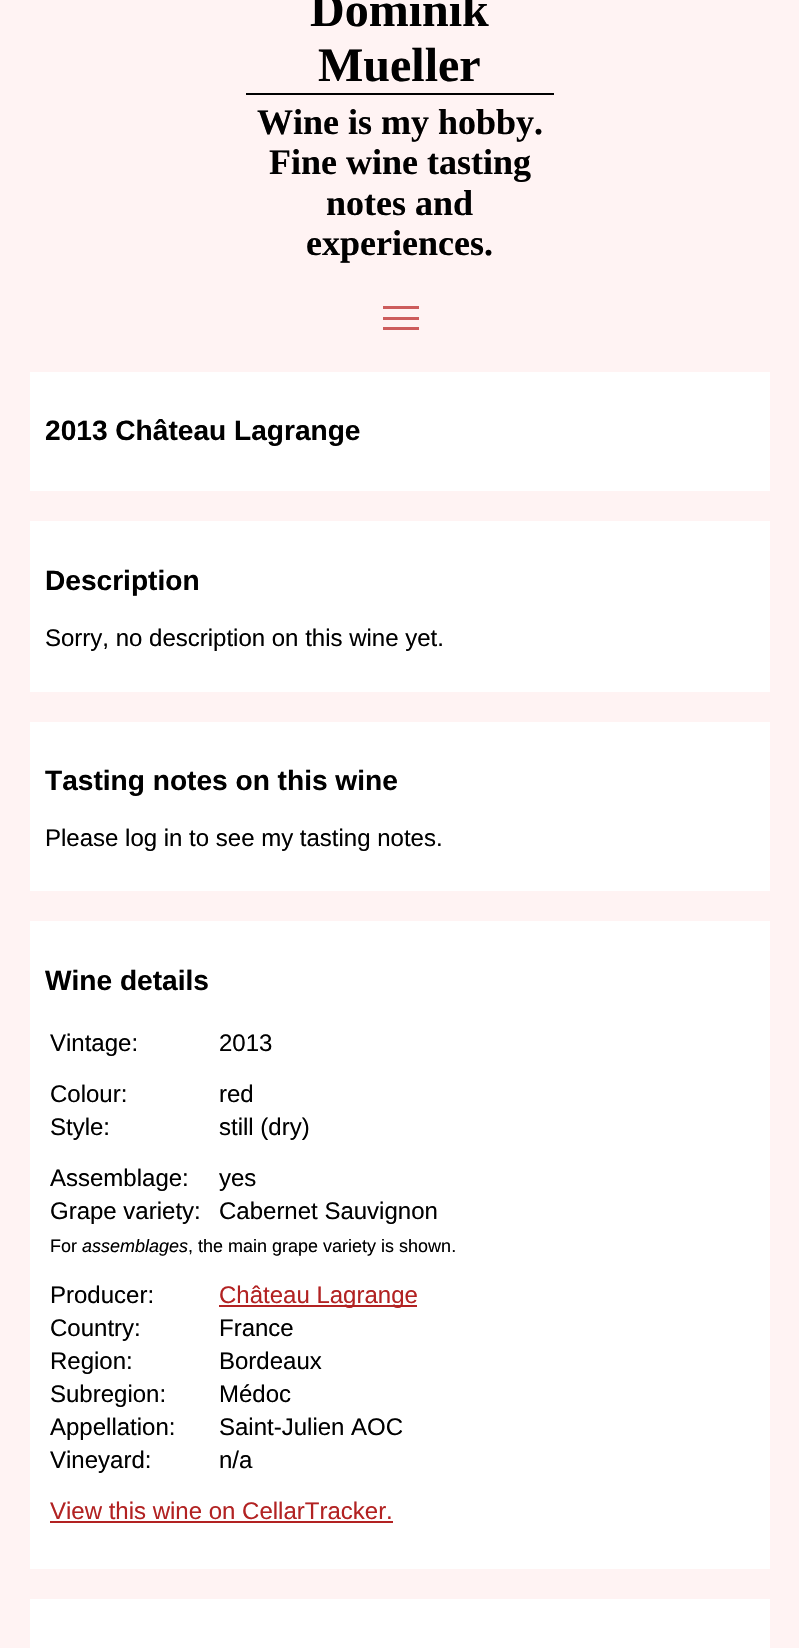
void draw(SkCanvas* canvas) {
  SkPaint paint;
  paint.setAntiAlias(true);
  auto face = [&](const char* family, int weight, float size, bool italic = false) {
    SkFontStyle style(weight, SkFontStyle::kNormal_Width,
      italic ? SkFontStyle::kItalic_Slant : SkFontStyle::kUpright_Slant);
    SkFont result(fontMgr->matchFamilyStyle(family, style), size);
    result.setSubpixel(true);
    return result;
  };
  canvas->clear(0xfffff3f3);
  {
    const struct { float x, y, w, h; SkColor color; } items[] = {
      {246, 93, 308, 2, 0xff000000},
      {383, 317, 36, 3, 0xffcd5c5c},
      {383, 306, 36, 3, 0xffcd5c5c},
      {383, 327, 36, 3, 0xffcd5c5c},
      {30, 372, 740, 119, 0xffffffff},
      {30, 521, 740, 171, 0xffffffff},
      {30, 722, 740, 169, 0xffffffff},
      {30, 921, 740, 648, 0xffffffff},
      {219, 1305, 198, 2, 0xffb22222},
      {50, 1521, 343, 2, 0xffb22222},
      {30, 1599, 740, 49, 0xffffffff},
    };
    for (auto [x, y, w, h, color] : items) {
      paint.setColor(color);
      canvas->drawRect(SkRect::MakeXYWH(x, y, w, h), paint);
    }
  }
  auto f0 = face("Liberation Serif", 700, 48);
  paint.setColor(0xff000000);
  canvas->drawString("Dominik", 310, 26, f0, paint);
  canvas->drawString("Mueller", 318, 81, f0, paint);
  auto f1 = face("Liberation Serif", 700, 36);
  {
    const struct { const char* s; float x, y; } items[] = {
      {"Wine is my hobby.", 257, 134},
      {"Fine wine tasting", 269, 174},
      {"notes and", 326, 215},
      {"experiences.", 306, 255},
    };
    for (auto [s, x, y] : items) {
      canvas->drawString(s, x, y, f1, paint);
    }
  }
  auto f2 = face("Liberation Sans", 700, 28.1f);
  canvas->drawString("2013 Château Lagrange", 45, 440, f2, paint);
  canvas->drawString("Description", 45, 590, f2, paint);
  auto f3 = face("Liberation Sans", 400, 24);
  canvas->drawString("Sorry, no description on this wine yet.", 45, 646, f3, paint);
  canvas->drawString("Tasting notes on this wine", 45, 790, f2, paint);
  canvas->drawString("Please log in to see my tasting notes.", 45, 846, f3, paint);
  canvas->drawString("Wine details", 45, 990, f2, paint);
  {
    const struct { const char* s; float x, y; } items[] = {
      {"Vintage:", 50, 1051},
      {"2013", 219, 1051},
      {"Colour:", 50, 1102},
      {"red", 219, 1102},
      {"Style:", 50, 1135},
      {"still (dry)", 219, 1135},
      {"Assemblage:", 50, 1186},
      {"yes", 219, 1186},
      {"Grape variety:", 50, 1219},
      {"Cabernet Sauvignon", 219, 1219},
    };
    for (auto [s, x, y] : items) {
      canvas->drawString(s, x, y, f3, paint);
    }
  }
  auto f4 = face("Liberation Sans", 400, 18);
  canvas->drawString("For", 50, 1252, f4, paint);
  auto f5 = face("Liberation Sans", 400, 18, true);
  canvas->drawString("assemblages", 82, 1252, f5, paint);
  canvas->drawString(", the main grape variety is shown.", 188, 1252, f4, paint);
  canvas->drawString("Producer:", 50, 1303, f3, paint);
  paint.setColor(0xffb22222);
  canvas->drawString("Château Lagrange", 219, 1303, f3, paint);
  paint.setColor(0xff000000);
  {
    const struct { const char* s; float x, y; } items[] = {
      {"Country:", 50, 1336},
      {"France", 219, 1336},
      {"Region:", 50, 1369},
      {"Bordeaux", 219, 1369},
      {"Subregion:", 50, 1402},
      {"Médoc", 219, 1402},
      {"Appellation:", 50, 1435},
      {"Saint-Julien AOC", 219, 1435},
      {"Vineyard:", 50, 1468},
      {"n/a", 219, 1468},
    };
    for (auto [s, x, y] : items) {
      canvas->drawString(s, x, y, f3, paint);
    }
  }
  paint.setColor(0xffb22222);
  canvas->drawString("View this wine on CellarTracker.", 50, 1519, f3, paint);
}
